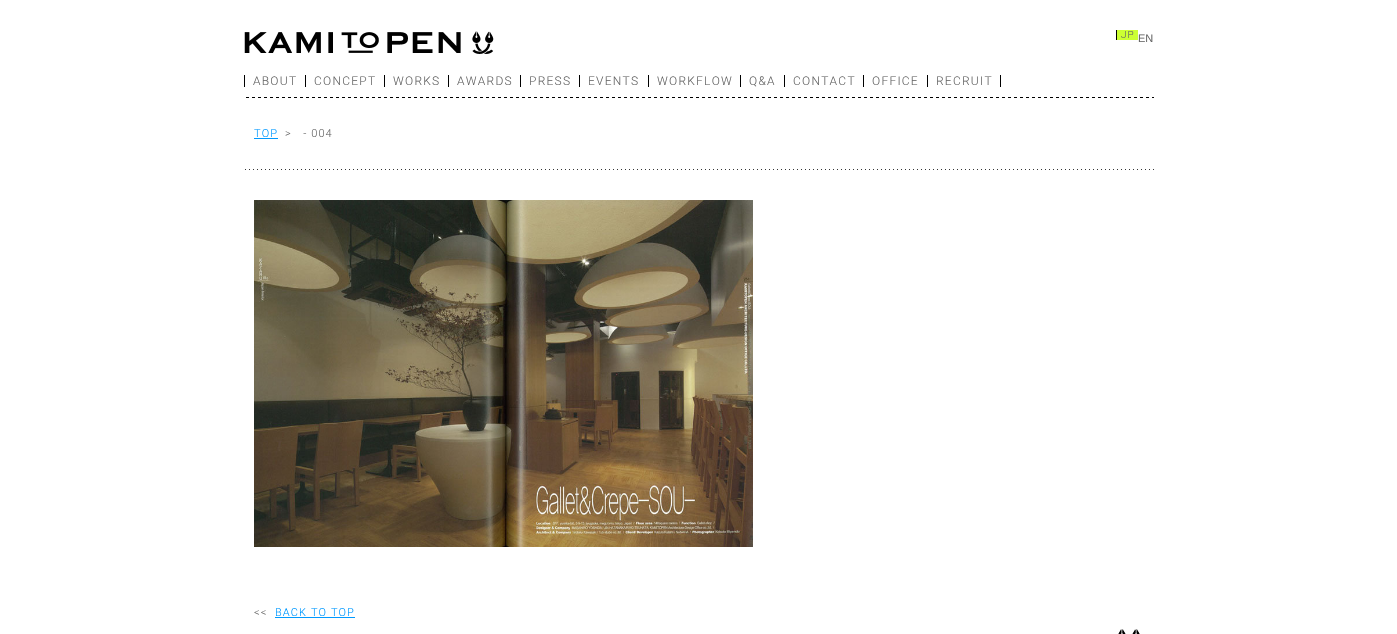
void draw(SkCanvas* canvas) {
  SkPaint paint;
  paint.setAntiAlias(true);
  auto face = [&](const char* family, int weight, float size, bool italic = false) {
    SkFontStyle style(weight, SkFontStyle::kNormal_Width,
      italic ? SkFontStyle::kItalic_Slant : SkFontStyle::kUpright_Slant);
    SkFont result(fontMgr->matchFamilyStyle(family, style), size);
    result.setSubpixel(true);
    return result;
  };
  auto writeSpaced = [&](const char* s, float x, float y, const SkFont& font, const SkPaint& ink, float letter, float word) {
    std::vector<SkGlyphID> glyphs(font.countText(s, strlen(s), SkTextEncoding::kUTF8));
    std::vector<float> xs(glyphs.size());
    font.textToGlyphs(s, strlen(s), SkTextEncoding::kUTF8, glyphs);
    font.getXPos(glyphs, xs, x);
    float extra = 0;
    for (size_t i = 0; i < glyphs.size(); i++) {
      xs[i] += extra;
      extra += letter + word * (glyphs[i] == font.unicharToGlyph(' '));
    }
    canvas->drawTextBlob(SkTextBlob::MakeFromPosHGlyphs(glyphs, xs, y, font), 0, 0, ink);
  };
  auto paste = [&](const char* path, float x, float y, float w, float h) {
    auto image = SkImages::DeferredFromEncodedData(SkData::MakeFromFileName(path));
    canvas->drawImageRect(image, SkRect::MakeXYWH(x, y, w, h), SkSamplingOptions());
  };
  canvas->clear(0xffffffff);
  {
    const struct { float x, y, w, h; SkColor color; } items[] = {
      {1117, 30, 21, 10, 0xffccff33},
      {1116, 30, 1, 10, 0xff000000},
      {244, 75, 1, 12, 0xff000000},
      {305, 75, 1, 12, 0xff000000},
      {384, 75, 1, 12, 0xff000000},
      {448, 75, 1, 12, 0xff000000},
      {520, 75, 1, 12, 0xff000000},
      {579, 75, 1, 12, 0xff000000},
      {648, 75, 1, 12, 0xff000000},
      {740, 75, 1, 12, 0xff000000},
      {784, 75, 1, 12, 0xff000000},
      {863, 75, 1, 12, 0xff000000},
      {1000, 75, 1, 12, 0xff000000},
      {927, 75, 1, 12, 0xff000000},
    };
    for (auto [x, y, w, h, color] : items) {
      paint.setColor(color);
      canvas->drawRect(SkRect::MakeXYWH(x, y, w, h), paint);
    }
  }
  paste("img/1.png", 244, 31, 250, 23);
  paste("img/2.png", 246, 97, 908, 1);
  paint.setColor(0xff0099ff);
  canvas->drawRect(SkRect::MakeXYWH(254, 138, 24, 1), paint);
  paste("img/3.png", 245, 169, 909, 1);
  paste("img/4.png", 254, 200, 499, 347);
  canvas->drawRect(SkRect::MakeXYWH(275, 617, 80, 1), paint);
  paste("img/5.png", 1118, 629, 22, 5);
  auto f0 = face("Roboto", 300, 10);
  paint.setColor(0xff666666);
  writeSpaced("JP", 1121, 38, f0, paint, 1, 0);
  auto f1 = face("Liberation Sans", 400, 11);
  canvas->drawString("EN", 1138, 42, f1, paint);
  auto f2 = face("Roboto", 300, 12);
  {
    const struct { const char* s; float x, y; } items[] = {
      {"ABOUT", 253, 85},
      {"CONCEPT", 314, 85},
      {"WORKS", 393, 85},
      {"AWARDS", 457, 85},
      {"PRESS", 529, 85},
      {"EVENTS", 588, 85},
      {"WORKFLOW", 657, 85},
      {"Q&A", 749, 85},
      {"CONTACT", 793, 85},
      {"OFFICE", 872, 85},
      {"RECRUIT", 936, 85},
    };
    for (auto [s, x, y] : items) {
      writeSpaced(s, x, y, f2, paint, 1.25f, 0);
    }
  }
  auto f3 = face("Roboto", 300, 11);
  paint.setColor(0xff0099ff);
  writeSpaced("TOP", 254, 137, f3, paint, 1.1f, 0);
  paint.setColor(0xff666666);
  writeSpaced(">   - 004", 285, 137, f3, paint, 1.1f, 0);
  writeSpaced("<<", 254, 616, f3, paint, 1.1f, 0);
  paint.setColor(0xff0099ff);
  writeSpaced("BACK TO TOP", 275, 616, f3, paint, 1.1f, 0);
}
